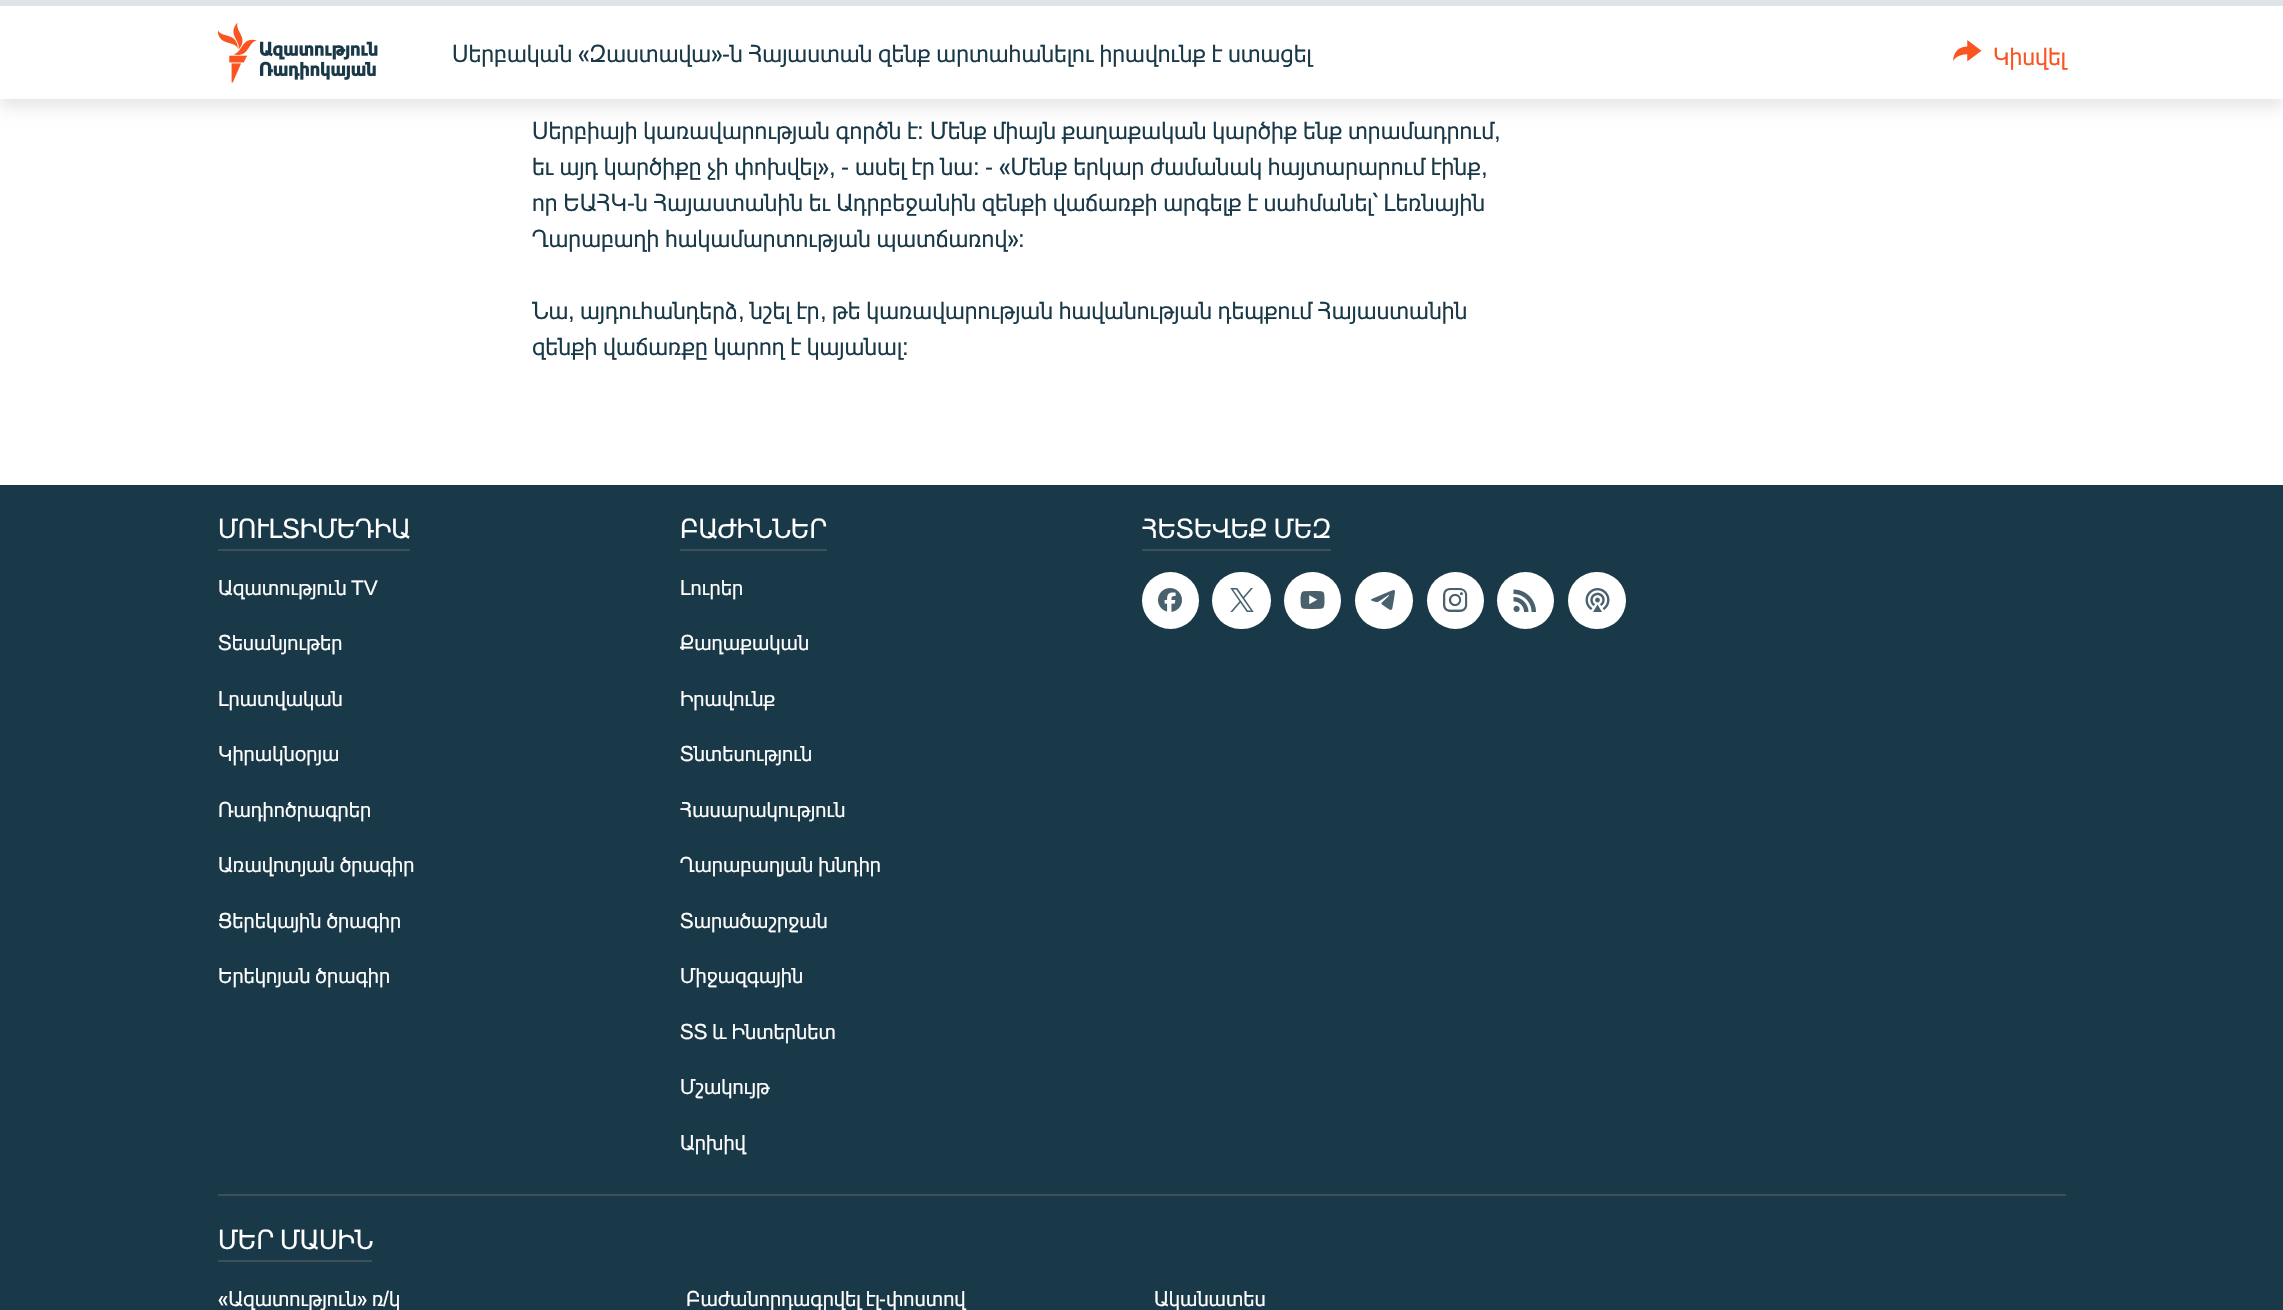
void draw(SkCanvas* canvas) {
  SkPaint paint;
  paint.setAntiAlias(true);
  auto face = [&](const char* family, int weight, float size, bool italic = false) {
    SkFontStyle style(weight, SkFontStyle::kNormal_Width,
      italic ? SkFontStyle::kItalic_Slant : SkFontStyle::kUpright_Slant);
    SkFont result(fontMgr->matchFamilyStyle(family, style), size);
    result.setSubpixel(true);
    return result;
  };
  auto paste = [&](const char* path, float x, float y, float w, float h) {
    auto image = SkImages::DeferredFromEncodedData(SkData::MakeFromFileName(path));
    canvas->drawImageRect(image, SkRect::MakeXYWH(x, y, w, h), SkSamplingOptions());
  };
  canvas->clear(0xffffffff);
  paint.setColor(0x1a000000);
  paint.setMaskFilter(SkMaskFilter::MakeBlur(kNormal_SkBlurStyle, 7.5f));
  canvas->drawRect(SkRect::MakeXYWH(0, 8, 2283, 99), paint);
  paint.setMaskFilter(nullptr);
  paint.setColor(0xffffffff);
  canvas->drawRect(SkRect::MakeXYWH(0, 6, 2283, 93), paint);
  paint.setColor(0xffdce4e8);
  canvas->drawRect(SkRect::MakeXYWH(0, 0, 2283, 6), paint);
  paste("img/1.png", 218, 23, 160, 60);
  paste("img/2.png", 1953, 40, 29, 22);
  {
    const struct { float x, y, w, h; SkColor color; } items[] = {
      {0, 485, 2283, 825, 0xff1a3948},
      {218, 549, 192, 2, 0xff3e4f57},
      {680, 549, 147, 2, 0xff3e4f57},
      {1142, 549, 189, 2, 0xff3e4f57},
    };
    for (auto [x, y, w, h, color] : items) {
      paint.setColor(color);
      canvas->drawRect(SkRect::MakeXYWH(x, y, w, h), paint);
    }
  }
  paint.setColor(0xffffffff);
  canvas->drawCircle(1170.5f, 600.5f, 28.5f, paint);
  paste("img/3.png", 1158, 588, 24, 24);
  canvas->drawRoundRect(SkRect::MakeXYWH(1212, 572, 59, 57), 28.5f, 28.5f, paint);
  paste("img/4.png", 1230, 588, 24, 24);
  canvas->drawCircle(1312.5f, 600.5f, 28.5f, paint);
  paste("img/5.png", 1300, 591, 25, 18);
  canvas->drawRoundRect(SkRect::MakeXYWH(1355, 572, 58, 57), 28.5f, 28.5f, paint);
  paste("img/6.png", 1371, 590, 24, 20);
  canvas->drawCircle(1455.5f, 600.5f, 28.5f, paint);
  paste("img/7.png", 1443, 588, 25, 24);
  canvas->drawCircle(1525.5f, 600.5f, 28.5f, paint);
  paste("img/8.png", 1513, 589, 23, 23);
  canvas->drawRoundRect(SkRect::MakeXYWH(1568, 572, 58, 57), 28.5f, 28.5f, paint);
  paste("img/9.png", 1585, 588, 25, 24);
  paint.setColor(0xff3e4f57);
  canvas->drawRect(SkRect::MakeXYWH(218, 1194, 1848, 2), paint);
  canvas->drawRect(SkRect::MakeXYWH(218, 1260, 154, 2), paint);
  auto f0 = face("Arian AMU", 400, 24);
  paint.setColor(0xff1a3948);
  canvas->drawString("Սերբական «Զաստավա»", 452, 62, f0, paint);
  auto f1 = face("Liberation Sans", 400, 24);
  canvas->drawString("-", 722, 62, f1, paint);
  canvas->drawString("ն Հայաստան զենք արտահանելու իրավունք է ստացել", 730, 62, f0, paint);
  paint.setColor(0xfffa5420);
  canvas->drawString("Կիսվել", 1993, 65, f0, paint);
  paint.setColor(0xff1a3948);
  canvas->drawString("Սերբիայի կառավարության գործն է", 532, 139, f0, paint);
  canvas->drawString(":", 917, 139, f1, paint);
  canvas->drawString("Մենք միայն քաղաքական կարծիք ենք տրամադրում", 930, 139, f0, paint);
  canvas->drawString(",", 1494, 139, f1, paint);
  canvas->drawString("եւ այդ կարծիքը չի փոխվել»", 532, 175, f0, paint);
  canvas->drawString("-", 841, 175, f1, paint);
  canvas->drawString("ասել էր նա", 855, 175, f0, paint);
  canvas->drawString(":", 973, 175, f1, paint);
  canvas->drawString("-", 985, 175, f1, paint);
  canvas->drawString("«Մենք երկար ժամանակ հայտարարում էինք", 999, 175, f0, paint);
  canvas->drawString(",", 829, 175, f1, paint);
  canvas->drawString(",", 1481, 175, f1, paint);
  canvas->drawString("որ ԵԱՀԿ", 532, 211, f0, paint);
  canvas->drawString("-", 627, 211, f1, paint);
  canvas->drawString("ն Հայաստանին եւ Ադրբեջանին զենքի վաճառքի արգելք է սահմանել՝ Լեռնային", 635, 211, f0, paint);
  canvas->drawString("Ղարաբաղի հակամարտության պատճառով»", 532, 247, f0, paint);
  canvas->drawString(":", 1018, 247, f1, paint);
  canvas->drawString("Նա", 532, 319, f0, paint);
  canvas->drawString(",", 568, 319, f1, paint);
  canvas->drawString("այդուհանդերձ", 580, 319, f0, paint);
  canvas->drawString(",", 738, 319, f1, paint);
  canvas->drawString("նշել էր", 750, 319, f0, paint);
  canvas->drawString(",", 820, 319, f1, paint);
  canvas->drawString("թե կառավարության հավանության դեպքում Հայաստանին", 832, 319, f0, paint);
  canvas->drawString("զենքի վաճառքը կարող է կայանալ", 532, 355, f0, paint);
  canvas->drawString(":", 902, 355, f1, paint);
  auto f2 = face("Arian AMU", 400, 27);
  paint.setColor(0xffffffff);
  canvas->drawString("ՄՈՒԼՏԻՄԵԴԻԱ", 218, 538, f2, paint);
  auto f3 = face("Arian AMU", 400, 21);
  canvas->drawString("Ազատություն", 218, 595, f3, paint);
  auto f4 = face("Liberation Sans", 400, 21);
  canvas->drawString("TV", 351, 595, f4, paint);
  {
    const struct { const char* s; float x, y; } items[] = {
      {"Տեսանյութեր", 218, 650},
      {"Լրատվական", 218, 706},
      {"Կիրակնօրյա", 218, 761},
      {"Ռադիոծրագրեր", 218, 817},
      {"Առավոտյան ծրագիր", 218, 872},
      {"Ցերեկային ծրագիր", 218, 928},
      {"Երեկոյան ծրագիր", 218, 983},
    };
    for (auto [s, x, y] : items) {
      canvas->drawString(s, x, y, f3, paint);
    }
  }
  canvas->drawString("ԲԱԺԻՆՆԵՐ", 680, 538, f2, paint);
  {
    const struct { const char* s; float x, y; } items[] = {
      {"Լուրեր", 680, 595},
      {"Քաղաքական", 680, 650},
      {"Իրավունք", 680, 706},
      {"Տնտեսություն", 680, 761},
      {"Հասարակություն", 680, 817},
      {"Ղարաբաղյան խնդիր", 680, 872},
      {"Տարածաշրջան", 680, 928},
      {"Միջազգային", 680, 983},
      {"ՏՏ և Ինտերնետ", 680, 1039},
      {"Մշակույթ", 680, 1094},
      {"Արխիվ", 680, 1150},
    };
    for (auto [s, x, y] : items) {
      canvas->drawString(s, x, y, f3, paint);
    }
  }
  canvas->drawString("ՀԵՏԵՎԵՔ ՄԵԶ", 1142, 538, f2, paint);
  canvas->drawString("ՄԵՐ ՄԱՍԻՆ", 218, 1249, f2, paint);
  canvas->drawString("«Ազատություն» ռ", 218, 1306, f3, paint);
  canvas->drawString("/", 383, 1306, f4, paint);
  canvas->drawString("կ", 389, 1306, f3, paint);
  canvas->drawString("Բաժանորդագրվել էլ", 686, 1306, f3, paint);
  canvas->drawString("-", 879, 1306, f4, paint);
  canvas->drawString("փոստով", 886, 1306, f3, paint);
  canvas->drawString("Ականատես", 1154, 1306, f3, paint);
}
